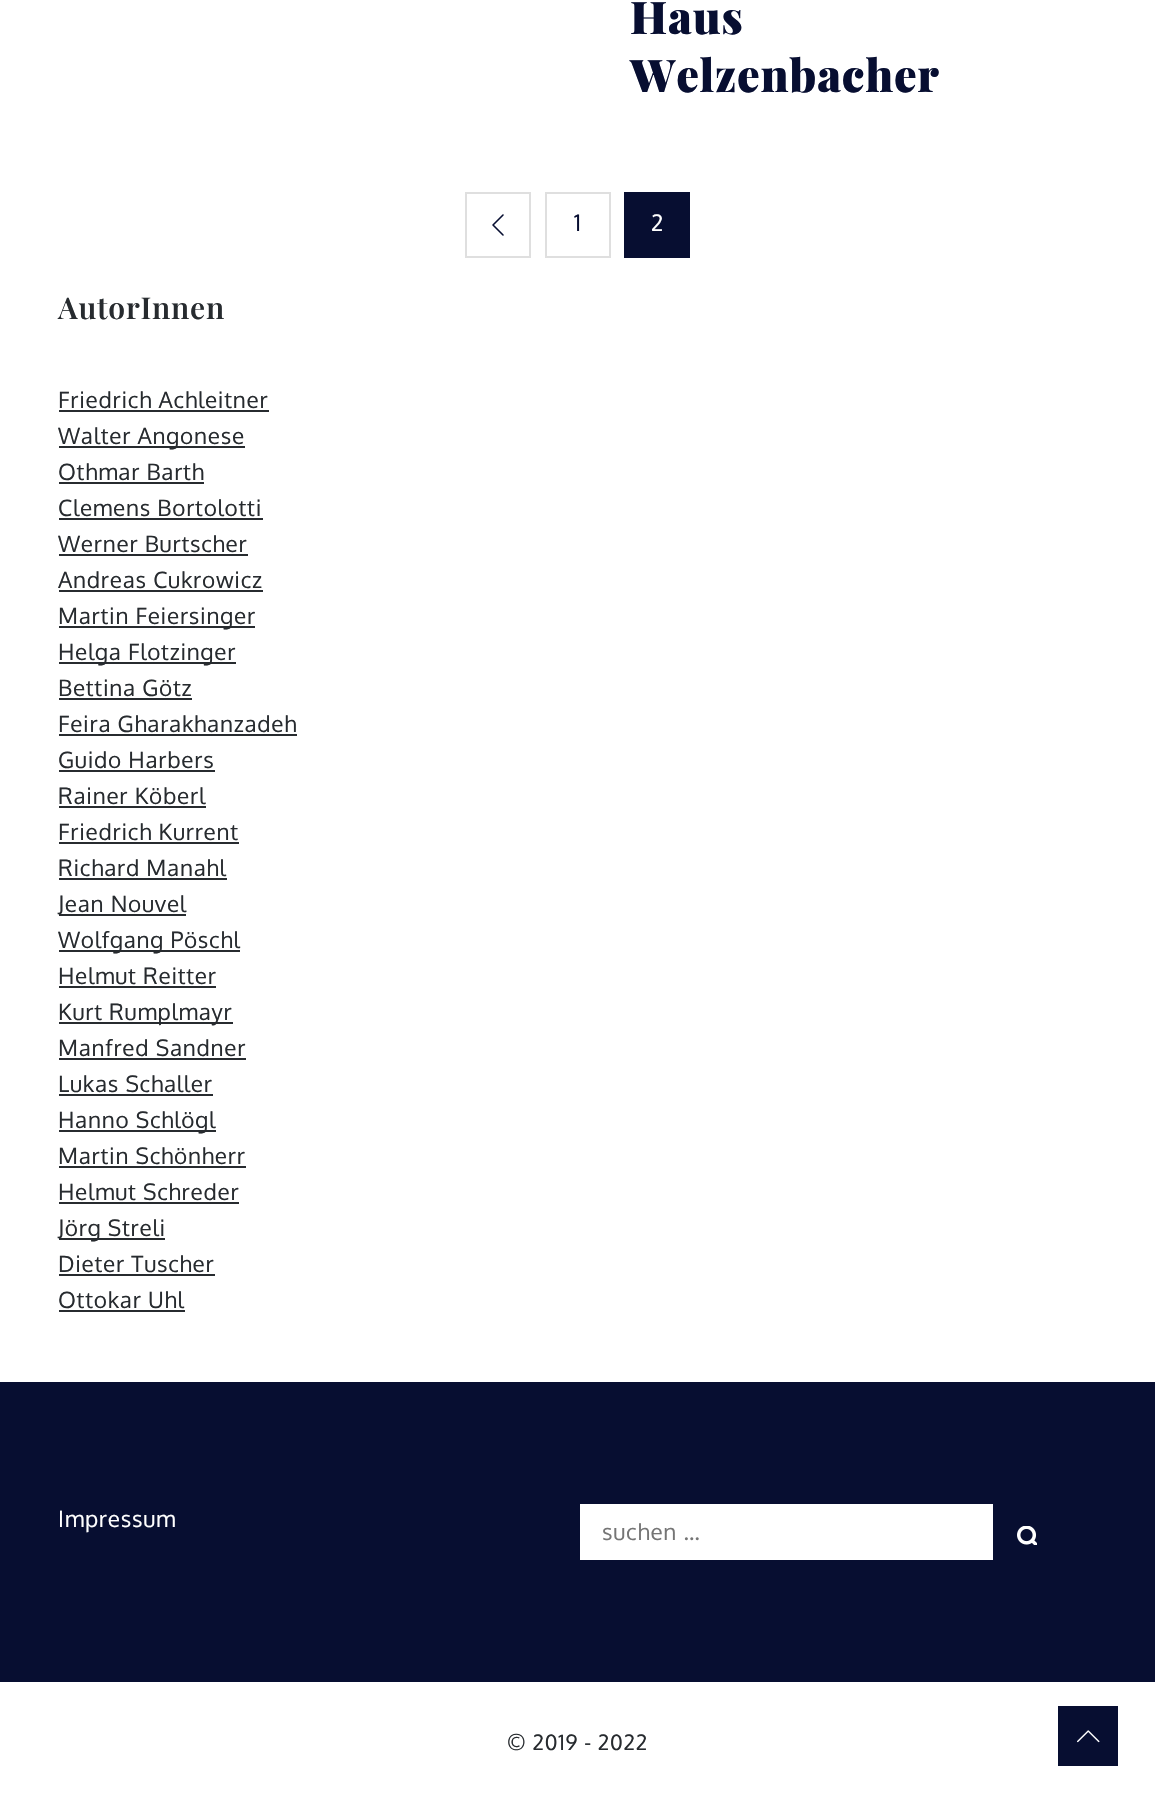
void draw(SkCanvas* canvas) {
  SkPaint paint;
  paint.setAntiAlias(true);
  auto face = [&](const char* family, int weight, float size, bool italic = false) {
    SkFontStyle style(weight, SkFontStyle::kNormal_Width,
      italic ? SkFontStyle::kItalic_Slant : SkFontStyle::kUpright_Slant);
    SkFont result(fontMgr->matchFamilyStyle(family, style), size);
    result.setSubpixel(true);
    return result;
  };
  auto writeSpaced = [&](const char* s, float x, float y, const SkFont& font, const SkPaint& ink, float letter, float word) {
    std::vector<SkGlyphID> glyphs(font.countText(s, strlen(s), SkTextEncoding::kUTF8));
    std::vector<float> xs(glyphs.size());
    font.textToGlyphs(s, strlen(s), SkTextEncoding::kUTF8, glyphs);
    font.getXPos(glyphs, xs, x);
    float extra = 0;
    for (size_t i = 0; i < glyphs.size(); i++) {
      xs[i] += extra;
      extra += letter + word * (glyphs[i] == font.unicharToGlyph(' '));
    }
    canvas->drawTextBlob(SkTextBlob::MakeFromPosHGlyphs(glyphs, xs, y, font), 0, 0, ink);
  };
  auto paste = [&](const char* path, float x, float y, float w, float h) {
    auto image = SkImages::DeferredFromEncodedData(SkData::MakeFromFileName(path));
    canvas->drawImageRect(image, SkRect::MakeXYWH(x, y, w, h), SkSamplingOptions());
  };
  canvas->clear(0xffffffff);
  paint.setStroke(true);
  paint.setStrokeWidth(2);
  paint.setColor(0xffdfdfdf);
  canvas->drawRect(SkRect::MakeXYWH(466, 193, 64, 64), paint);
  paste("img/1.png", 492, 214, 12, 22);
  canvas->drawRect(SkRect::MakeXYWH(546, 193, 64, 64), paint);
  paint.setStroke(false);
  {
    const struct { float x, y, w, h; SkColor color; } items[] = {
      {624, 192, 66, 66, 0xff070e31},
      {59, 410, 210, 2, 0xff272b2f},
      {59, 446, 186, 2, 0xff272b2f},
      {59, 482, 145, 2, 0xff272b2f},
      {59, 518, 204, 2, 0xff272b2f},
      {59, 554, 189, 2, 0xff272b2f},
      {59, 590, 204, 2, 0xff272b2f},
      {59, 626, 196, 2, 0xff272b2f},
      {59, 662, 177, 2, 0xff272b2f},
      {59, 698, 133, 2, 0xff272b2f},
      {59, 734, 238, 2, 0xff272b2f},
      {59, 770, 156, 2, 0xff272b2f},
      {59, 806, 147, 2, 0xff272b2f},
      {59, 842, 180, 2, 0xff272b2f},
      {59, 878, 168, 2, 0xff272b2f},
      {59, 914, 127, 2, 0xff272b2f},
      {59, 950, 181, 2, 0xff272b2f},
      {59, 986, 157, 2, 0xff272b2f},
      {59, 1022, 174, 2, 0xff272b2f},
      {59, 1058, 187, 2, 0xff272b2f},
      {59, 1094, 154, 2, 0xff272b2f},
      {59, 1130, 157, 2, 0xff272b2f},
      {59, 1166, 187, 2, 0xff272b2f},
      {59, 1202, 180, 2, 0xff272b2f},
      {59, 1238, 106, 2, 0xff272b2f},
      {59, 1274, 156, 2, 0xff272b2f},
      {59, 1310, 126, 2, 0xff272b2f},
      {0, 1382, 1155, 300, 0xff070e31},
      {580, 1504, 413, 56, 0xffffffff},
    };
    for (auto [x, y, w, h, color] : items) {
      paint.setColor(color);
      canvas->drawRect(SkRect::MakeXYWH(x, y, w, h), paint);
    }
  }
  paste("img/2.png", 1017, 1526, 20, 19);
  paint.setColor(0xff070e31);
  canvas->drawRect(SkRect::MakeXYWH(1058, 1706, 60, 60), paint);
  paste("img/3.png", 1077, 1730, 23, 13);
  auto f0 = face("Playfair Display", 900, 45);
  writeSpaced("Haus", 630, 34, f0, paint, 0.75f, 0);
  writeSpaced("Welzenbacher", 630, 92, f0, paint, 0.75f, 0);
  auto f1 = face("Oxygen", 400, 22.5f);
  writeSpaced("1", 574, 231, f1, paint, 0.75f, 0);
  paint.setColor(0xffffffff);
  writeSpaced("2", 651, 231, f1, paint, 0.75f, 0);
  auto f2 = face("Playfair Display", 600, 30);
  paint.setColor(0xff272b2f);
  writeSpaced("AutorInnen", 58, 319, f2, paint, 0.75f, 0);
  {
    const struct { const char* s; float x, y; } items[] = {
      {"Friedrich Achleitner", 58, 408},
      {"Walter Angonese", 58, 444},
      {"Othmar Barth", 58, 480},
      {"Clemens Bortolotti", 58, 516},
      {"Werner Burtscher", 58, 552},
      {"Andreas Cukrowicz", 58, 588},
      {"Martin Feiersinger", 58, 624},
      {"Helga Flotzinger", 58, 660},
      {"Bettina Götz", 58, 696},
      {"Feira Gharakhanzadeh", 58, 732},
      {"Guido Harbers", 58, 768},
      {"Rainer Köberl", 58, 804},
      {"Friedrich Kurrent", 58, 840},
      {"Richard Manahl", 58, 876},
      {"Jean Nouvel", 58, 912},
      {"Wolfgang Pöschl", 58, 948},
      {"Helmut Reitter", 58, 984},
      {"Kurt Rumplmayr", 58, 1020},
      {"Manfred Sandner", 58, 1056},
      {"Lukas Schaller", 58, 1092},
      {"Hanno Schlögl", 58, 1128},
      {"Martin Schönherr", 58, 1164},
      {"Helmut Schreder", 58, 1200},
      {"Jörg Streli", 58, 1236},
      {"Dieter Tuscher", 58, 1272},
      {"Ottokar Uhl", 58, 1308},
    };
    for (auto [s, x, y] : items) {
      writeSpaced(s, x, y, f1, paint, 0.75f, 0);
    }
  }
  paint.setColor(0xffffffff);
  writeSpaced("Impressum", 58, 1527, f1, paint, 0.75f, 0);
  paint.setColor(0xff757575);
  writeSpaced("suchen …", 602, 1540, f1, paint, 0.75f, 0);
  auto f3 = face("Oxygen", 400, 21);
  paint.setColor(0xff272b2f);
  writeSpaced("© 2019 - 2022", 507, 1750, f3, paint, 0.75f, 0);
}
